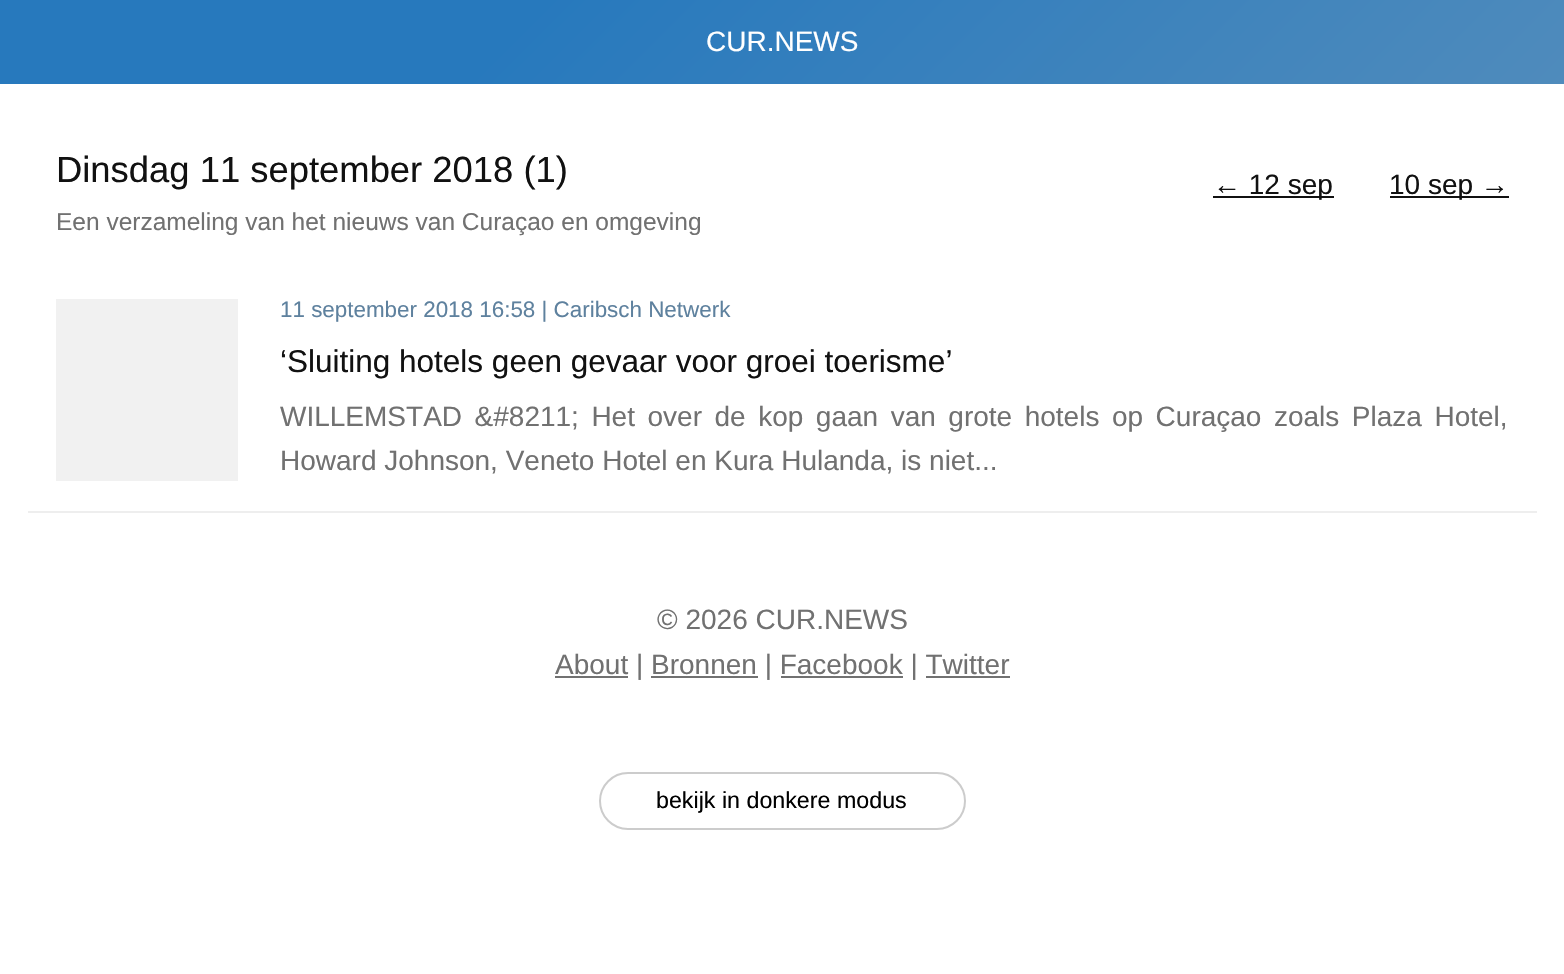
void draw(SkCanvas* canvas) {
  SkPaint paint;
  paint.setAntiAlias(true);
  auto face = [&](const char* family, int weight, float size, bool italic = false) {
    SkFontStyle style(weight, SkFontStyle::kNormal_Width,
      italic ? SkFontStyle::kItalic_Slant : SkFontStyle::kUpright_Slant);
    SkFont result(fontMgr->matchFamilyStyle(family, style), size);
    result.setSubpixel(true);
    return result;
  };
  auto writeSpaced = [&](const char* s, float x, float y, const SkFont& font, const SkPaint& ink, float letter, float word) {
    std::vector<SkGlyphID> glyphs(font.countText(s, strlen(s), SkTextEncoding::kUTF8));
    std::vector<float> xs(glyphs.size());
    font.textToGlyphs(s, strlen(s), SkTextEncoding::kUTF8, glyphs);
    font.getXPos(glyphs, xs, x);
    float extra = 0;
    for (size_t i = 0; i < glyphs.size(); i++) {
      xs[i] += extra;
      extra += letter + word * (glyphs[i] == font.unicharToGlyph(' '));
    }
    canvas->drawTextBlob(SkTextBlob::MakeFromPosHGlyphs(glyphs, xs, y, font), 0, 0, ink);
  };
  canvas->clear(0xffffffff);
  {
    const SkColor colors[] = {0xff2779bd, 0xff4f8bbc};
    const float stops[] = {0.33f, 1};
    const SkPoint ends[] = {{370, -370}, {1194, 454}};
    paint.setShader(SkGradientShader::MakeLinear(ends, colors, stops, 2, SkTileMode::kClamp));
    paint.setAlpha(255);
  }
  canvas->drawRect(SkRect::MakeXYWH(0, 0, 1564, 84), paint);
  paint.setShader(nullptr);
  {
    const struct { float x, y, w, h; SkColor color; } items[] = {
      {1213, 196, 121, 2, 0xff111111},
      {1390, 196, 119, 2, 0xff111111},
      {28, 511, 1509, 2, 0xffeeeeee},
      {56, 299, 182, 182, 0xfff1f1f1},
      {555, 676, 73, 2, 0xff717171},
      {651, 676, 107, 2, 0xff717171},
      {781, 676, 122, 2, 0xff717171},
      {926, 676, 84, 2, 0xff717171},
    };
    for (auto [x, y, w, h, color] : items) {
      paint.setColor(color);
      canvas->drawRect(SkRect::MakeXYWH(x, y, w, h), paint);
    }
  }
  paint.setStroke(true);
  paint.setStrokeWidth(2);
  paint.setColor(0xffcccccc);
  canvas->drawRoundRect(SkRect::MakeXYWH(600, 773, 365, 56), 28, 28, paint);
  auto f0 = face("Liberation Sans", 400, 28);
  paint.setStroke(false);
  paint.setColor(0xffffffff);
  canvas->drawString("CUR.NEWS", 706, 51, f0, paint);
  auto f1 = face("Liberation Sans", 400, 36.4f);
  paint.setColor(0xff111111);
  canvas->drawString("Dinsdag 11 september 2018 (1)", 56, 182, f1, paint);
  auto f2 = face("Liberation Sans", 400, 24.5f);
  paint.setColor(0xff717171);
  canvas->drawString("Een verzameling van het nieuws van Curaçao en omgeving", 56, 230, f2, paint);
  paint.setColor(0xff111111);
  canvas->drawString("← 12 sep", 1213, 194, f0, paint);
  canvas->drawString("10 sep →", 1389, 194, f0, paint);
  auto f3 = face("Liberation Sans", 400, 22.4f);
  paint.setColor(0xff5e819e);
  canvas->drawString("11 september 2018 16:58 | Caribsch Netwerk", 280, 317, f3, paint);
  auto f4 = face("Liberation Sans", 400, 31.5f);
  paint.setColor(0xff111111);
  canvas->drawString("‘Sluiting hotels geen gevaar voor groei toerisme’", 280, 372, f4, paint);
  paint.setColor(0xff717171);
  writeSpaced("WILLEMSTAD &#8211; Het over de kop gaan van grote hotels op Curaçao zoals Plaza Hotel,", 280, 426, f0, paint, 0, 4.75f);
  {
    const struct { const char* s; float x, y; } items[] = {
      {"Howard Johnson, Veneto Hotel en Kura Hulanda, is niet...", 280, 470},
      {"© 2026 CUR.NEWS", 657, 629},
      {"About | Bronnen | Facebook | Twitter", 555, 674},
    };
    for (auto [s, x, y] : items) {
      canvas->drawString(s, x, y, f0, paint);
    }
  }
  auto f5 = face("Liberation Sans", 400, 23.25f);
  paint.setColor(0xff000000);
  canvas->drawString("bekijk in donkere modus", 656, 808, f5, paint);
}
